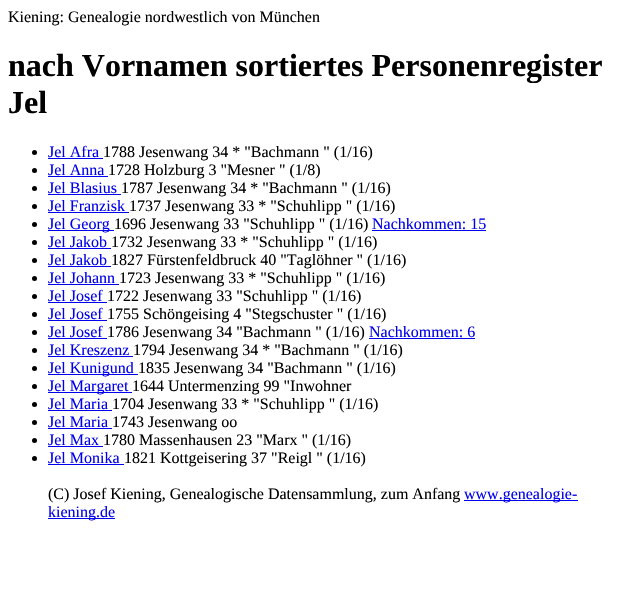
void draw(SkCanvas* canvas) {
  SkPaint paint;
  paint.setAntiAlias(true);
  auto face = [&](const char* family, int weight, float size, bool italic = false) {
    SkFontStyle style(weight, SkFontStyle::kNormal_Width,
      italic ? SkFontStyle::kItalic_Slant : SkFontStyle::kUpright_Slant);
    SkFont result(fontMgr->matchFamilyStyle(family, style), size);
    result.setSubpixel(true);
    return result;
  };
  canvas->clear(0xffffffff);
  paint.setColor(0xff000000);
  canvas->drawCircle(34.5f, 152.5f, 2.5f, paint);
  paint.setColor(0xff0000ee);
  canvas->drawRect(SkRect::MakeXYWH(48, 158, 55, 1), paint);
  paint.setColor(0xff000000);
  canvas->drawCircle(34.5f, 170.5f, 2.5f, paint);
  paint.setColor(0xff0000ee);
  canvas->drawRect(SkRect::MakeXYWH(48, 176, 60, 1), paint);
  paint.setColor(0xff000000);
  canvas->drawCircle(34.5f, 188.5f, 2.5f, paint);
  paint.setColor(0xff0000ee);
  canvas->drawRect(SkRect::MakeXYWH(48, 194, 73, 1), paint);
  paint.setColor(0xff000000);
  canvas->drawCircle(34.5f, 206.5f, 2.5f, paint);
  paint.setColor(0xff0000ee);
  canvas->drawRect(SkRect::MakeXYWH(48, 212, 81, 1), paint);
  paint.setColor(0xff000000);
  canvas->drawCircle(34.5f, 224.5f, 2.5f, paint);
  paint.setColor(0xff0000ee);
  canvas->drawRect(SkRect::MakeXYWH(48, 230, 66, 1), paint);
  canvas->drawRect(SkRect::MakeXYWH(372, 230, 114, 1), paint);
  paint.setColor(0xff000000);
  canvas->drawCircle(34.5f, 242.5f, 2.5f, paint);
  paint.setColor(0xff0000ee);
  canvas->drawRect(SkRect::MakeXYWH(48, 248, 63, 1), paint);
  paint.setColor(0xff000000);
  canvas->drawCircle(34.5f, 260.5f, 2.5f, paint);
  paint.setColor(0xff0000ee);
  canvas->drawRect(SkRect::MakeXYWH(48, 266, 63, 1), paint);
  paint.setColor(0xff000000);
  canvas->drawCircle(34.5f, 278.5f, 2.5f, paint);
  paint.setColor(0xff0000ee);
  canvas->drawRect(SkRect::MakeXYWH(48, 284, 71, 1), paint);
  paint.setColor(0xff000000);
  canvas->drawCircle(34.5f, 296.5f, 2.5f, paint);
  paint.setColor(0xff0000ee);
  canvas->drawRect(SkRect::MakeXYWH(48, 302, 59, 1), paint);
  paint.setColor(0xff000000);
  canvas->drawCircle(34.5f, 314.5f, 2.5f, paint);
  paint.setColor(0xff0000ee);
  canvas->drawRect(SkRect::MakeXYWH(48, 320, 59, 1), paint);
  paint.setColor(0xff000000);
  canvas->drawCircle(34.5f, 332.5f, 2.5f, paint);
  paint.setColor(0xff0000ee);
  canvas->drawRect(SkRect::MakeXYWH(48, 338, 59, 1), paint);
  canvas->drawRect(SkRect::MakeXYWH(369, 338, 106, 1), paint);
  paint.setColor(0xff000000);
  canvas->drawCircle(34.5f, 350.5f, 2.5f, paint);
  paint.setColor(0xff0000ee);
  canvas->drawRect(SkRect::MakeXYWH(48, 356, 85, 1), paint);
  paint.setColor(0xff000000);
  canvas->drawCircle(34.5f, 368.5f, 2.5f, paint);
  paint.setColor(0xff0000ee);
  canvas->drawRect(SkRect::MakeXYWH(48, 374, 90, 1), paint);
  paint.setColor(0xff000000);
  canvas->drawCircle(34.5f, 386.5f, 2.5f, paint);
  paint.setColor(0xff0000ee);
  canvas->drawRect(SkRect::MakeXYWH(48, 392, 84, 1), paint);
  paint.setColor(0xff000000);
  canvas->drawCircle(34.5f, 404.5f, 2.5f, paint);
  paint.setColor(0xff0000ee);
  canvas->drawRect(SkRect::MakeXYWH(48, 410, 64, 1), paint);
  paint.setColor(0xff000000);
  canvas->drawCircle(34.5f, 422.5f, 2.5f, paint);
  paint.setColor(0xff0000ee);
  canvas->drawRect(SkRect::MakeXYWH(48, 428, 64, 1), paint);
  paint.setColor(0xff000000);
  canvas->drawCircle(34.5f, 440.5f, 2.5f, paint);
  paint.setColor(0xff0000ee);
  canvas->drawRect(SkRect::MakeXYWH(48, 446, 55, 1), paint);
  paint.setColor(0xff000000);
  canvas->drawCircle(34.5f, 458.5f, 2.5f, paint);
  {
    const struct { float x, y, w, h; SkColor color; } items[] = {
      {48, 464, 76, 1, 0xff0000ee},
      {464, 500, 114, 1, 0xff0000ee},
      {48, 518, 67, 1, 0xff0000ee},
    };
    for (auto [x, y, w, h, color] : items) {
      paint.setColor(color);
      canvas->drawRect(SkRect::MakeXYWH(x, y, w, h), paint);
    }
  }
  auto f0 = face("Liberation Serif", 400, 16);
  paint.setColor(0xff000000);
  canvas->drawString("Kiening: Genealogie nordwestlich von München", 8, 22, f0, paint);
  auto f1 = face("Liberation Serif", 700, 32);
  canvas->drawString("nach Vornamen sortiertes Personenregister", 8, 76, f1, paint);
  canvas->drawString("Jel", 8, 113, f1, paint);
  paint.setColor(0xff0000ee);
  canvas->drawString("Jel Afra", 48, 157, f0, paint);
  paint.setColor(0xff000000);
  canvas->drawString("1788 Jesenwang 34 * \"Bachmann \" (1/16)", 103, 157, f0, paint);
  paint.setColor(0xff0000ee);
  canvas->drawString("Jel Anna", 48, 175, f0, paint);
  paint.setColor(0xff000000);
  canvas->drawString("1728 Holzburg 3 \"Mesner \" (1/8)", 108, 175, f0, paint);
  paint.setColor(0xff0000ee);
  canvas->drawString("Jel Blasius", 48, 193, f0, paint);
  paint.setColor(0xff000000);
  canvas->drawString("1787 Jesenwang 34 * \"Bachmann \" (1/16)", 121, 193, f0, paint);
  paint.setColor(0xff0000ee);
  canvas->drawString("Jel Franzisk", 48, 211, f0, paint);
  paint.setColor(0xff000000);
  canvas->drawString("1737 Jesenwang 33 * \"Schuhlipp \" (1/16)", 129, 211, f0, paint);
  paint.setColor(0xff0000ee);
  canvas->drawString("Jel Georg", 48, 229, f0, paint);
  paint.setColor(0xff000000);
  canvas->drawString("1696 Jesenwang 33 \"Schuhlipp \" (1/16)", 114, 229, f0, paint);
  paint.setColor(0xff0000ee);
  canvas->drawString("Nachkommen: 15", 372, 229, f0, paint);
  canvas->drawString("Jel Jakob", 48, 247, f0, paint);
  paint.setColor(0xff000000);
  canvas->drawString("1732 Jesenwang 33 * \"Schuhlipp \" (1/16)", 111, 247, f0, paint);
  paint.setColor(0xff0000ee);
  canvas->drawString("Jel Jakob", 48, 265, f0, paint);
  paint.setColor(0xff000000);
  canvas->drawString("1827 Fürstenfeldbruck 40 \"Taglöhner \" (1/16)", 111, 265, f0, paint);
  paint.setColor(0xff0000ee);
  canvas->drawString("Jel Johann", 48, 283, f0, paint);
  paint.setColor(0xff000000);
  canvas->drawString("1723 Jesenwang 33 * \"Schuhlipp \" (1/16)", 119, 283, f0, paint);
  paint.setColor(0xff0000ee);
  canvas->drawString("Jel Josef", 48, 301, f0, paint);
  paint.setColor(0xff000000);
  canvas->drawString("1722 Jesenwang 33 \"Schuhlipp \" (1/16)", 107, 301, f0, paint);
  paint.setColor(0xff0000ee);
  canvas->drawString("Jel Josef", 48, 319, f0, paint);
  paint.setColor(0xff000000);
  canvas->drawString("1755 Schöngeising 4 \"Stegschuster \" (1/16)", 107, 319, f0, paint);
  paint.setColor(0xff0000ee);
  canvas->drawString("Jel Josef", 48, 337, f0, paint);
  paint.setColor(0xff000000);
  canvas->drawString("1786 Jesenwang 34 \"Bachmann \" (1/16)", 107, 337, f0, paint);
  paint.setColor(0xff0000ee);
  canvas->drawString("Nachkommen: 6", 369, 337, f0, paint);
  canvas->drawString("Jel Kreszenz", 48, 355, f0, paint);
  paint.setColor(0xff000000);
  canvas->drawString("1794 Jesenwang 34 * \"Bachmann \" (1/16)", 133, 355, f0, paint);
  paint.setColor(0xff0000ee);
  canvas->drawString("Jel Kunigund", 48, 373, f0, paint);
  paint.setColor(0xff000000);
  canvas->drawString("1835 Jesenwang 34 \"Bachmann \" (1/16)", 138, 373, f0, paint);
  paint.setColor(0xff0000ee);
  canvas->drawString("Jel Margaret", 48, 391, f0, paint);
  paint.setColor(0xff000000);
  canvas->drawString("1644 Untermenzing 99 \"Inwohner", 132, 391, f0, paint);
  paint.setColor(0xff0000ee);
  canvas->drawString("Jel Maria", 48, 409, f0, paint);
  paint.setColor(0xff000000);
  canvas->drawString("1704 Jesenwang 33 * \"Schuhlipp \" (1/16)", 112, 409, f0, paint);
  paint.setColor(0xff0000ee);
  canvas->drawString("Jel Maria", 48, 427, f0, paint);
  paint.setColor(0xff000000);
  canvas->drawString("1743 Jesenwang oo", 112, 427, f0, paint);
  paint.setColor(0xff0000ee);
  canvas->drawString("Jel Max", 48, 445, f0, paint);
  paint.setColor(0xff000000);
  canvas->drawString("1780 Massenhausen 23 \"Marx \" (1/16)", 103, 445, f0, paint);
  paint.setColor(0xff0000ee);
  canvas->drawString("Jel Monika", 48, 463, f0, paint);
  paint.setColor(0xff000000);
  canvas->drawString("1821 Kottgeisering 37 \"Reigl \" (1/16)", 124, 463, f0, paint);
  canvas->drawString("(C) Josef Kiening, Genealogische Datensammlung, zum Anfang", 48, 499, f0, paint);
  paint.setColor(0xff0000ee);
  canvas->drawString("www.genealogie-", 464, 499, f0, paint);
  canvas->drawString("kiening.de", 48, 517, f0, paint);
}
